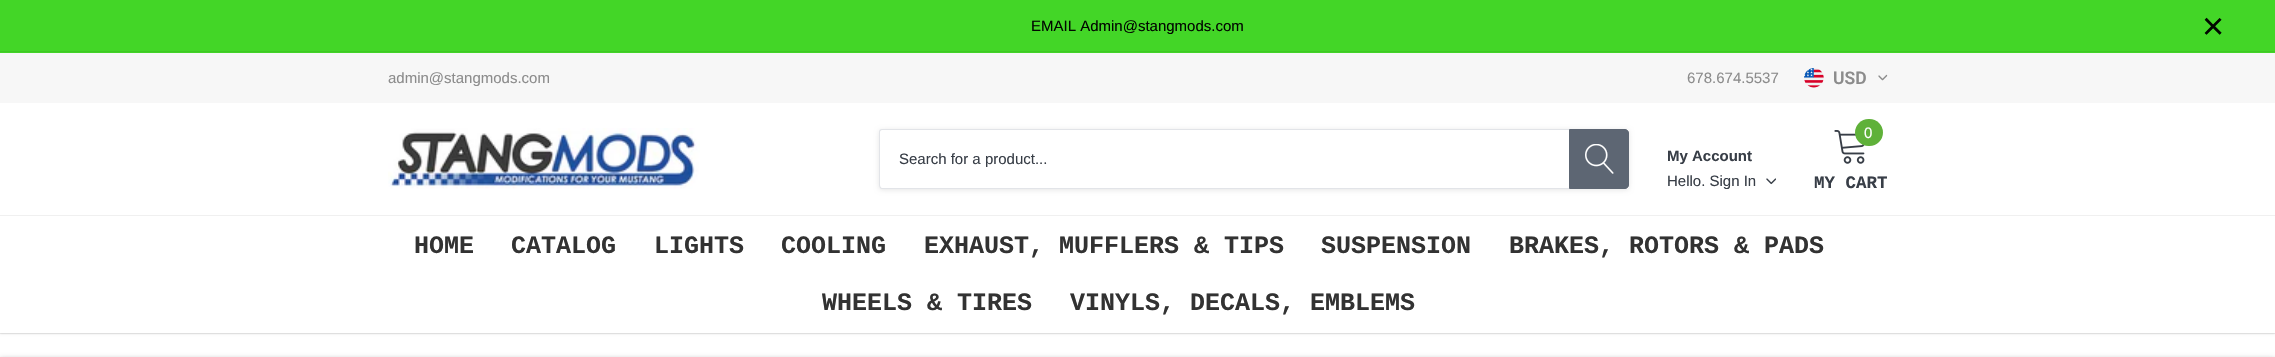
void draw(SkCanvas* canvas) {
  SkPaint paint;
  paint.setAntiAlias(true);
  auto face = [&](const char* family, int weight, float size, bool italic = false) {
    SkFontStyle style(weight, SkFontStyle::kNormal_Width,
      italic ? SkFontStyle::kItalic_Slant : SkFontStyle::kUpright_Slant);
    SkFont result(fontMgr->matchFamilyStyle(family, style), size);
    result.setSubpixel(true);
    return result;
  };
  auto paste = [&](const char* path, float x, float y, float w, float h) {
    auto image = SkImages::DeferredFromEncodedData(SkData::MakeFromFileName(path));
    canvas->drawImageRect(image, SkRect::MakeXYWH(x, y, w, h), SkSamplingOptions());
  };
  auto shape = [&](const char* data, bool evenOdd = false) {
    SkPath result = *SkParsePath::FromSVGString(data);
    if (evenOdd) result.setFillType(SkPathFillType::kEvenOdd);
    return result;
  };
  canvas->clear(0xffffffff);
  paint.setColor(0xff43d627);
  canvas->drawRect(SkRect::MakeXYWH(0, 0, 2275, 53), paint);
  paint.setColor(0x1a000000);
  paint.setMaskFilter(SkMaskFilter::MakeBlur(kNormal_SkBlurStyle, 1));
  canvas->drawRect(SkRect::MakeXYWH(0, 54, 2275, 280), paint);
  paint.setMaskFilter(nullptr);
  paint.setStroke(true);
  paint.setStrokeWidth(1);
  paint.setColor(0x0f000000);
  canvas->drawRect(SkRect::MakeXYWH(-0.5f, 51.5f, 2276, 282), paint);
  paint.setStroke(false);
  paint.setColor(0xffffffff);
  canvas->drawRect(SkRect::MakeXYWH(0, 103, 2275, 230), paint);
  paint.setColor(0xfff7f7f7);
  canvas->drawRect(SkRect::MakeXYWH(0, 53, 2275, 50), paint);
  paste("img/1.png", 1804, 68, 20, 20);
  paste("img/2.png", 1878, 74, 10, 7);
  paste("img/3.png", 388, 128, 312, 61);
  paint.setColor(0x1a000000);
  paint.setMaskFilter(SkMaskFilter::MakeBlur(kNormal_SkBlurStyle, 2.5f));
  canvas->drawRoundRect(SkRect::MakeXYWH(879, 130, 750, 60), 4, 4, paint);
  paint.setMaskFilter(nullptr);
  paint.setColor(0xffffffff);
  canvas->drawRoundRect(SkRect::MakeXYWH(879, 129, 750, 60), 4, 4, paint);
  paint.setColor(0xffe2e4e8);
  canvas->drawPath(shape("M882 129H1569V189H882C880 189 879 187 879 185V132C879 130 880 129 882 129ZM882 130H1569V188H882C881 188 880 186 880 185V132C880 131 881 130 882 130Z", true), paint);
  paint.setColor(0xff5d6673);
  canvas->drawPath(shape("M1569.5 129.5H1625C1627 129.5 1628.5 131 1628.5 133V185C1628.5 187 1627 188.5 1625 188.5H1569.5Z"), paint);
  paint.setStroke(true);
  canvas->drawPath(shape("M1569.5 129.5H1625C1627 129.5 1628.5 131 1628.5 133V185C1628.5 187 1627 188.5 1625 188.5H1569.5Z"), paint);
  paste("img/4.png", 1585, 144, 29, 30);
  paste("img/5.png", 1766, 178, 10, 7);
  paste("img/6.png", 1834, 130, 31, 34);
  paint.setStroke(false);
  paint.setColor(0xff5fb139);
  canvas->drawRoundRect(SkRect::MakeXYWH(1855, 119, 28, 27), 13.5f, 13.5f, paint);
  paint.setColor(0xfff0f0f0);
  canvas->drawRect(SkRect::MakeXYWH(0, 215, 2275, 1), paint);
  paint.setColor(0x33000000);
  paint.setMaskFilter(SkMaskFilter::MakeBlur(kNormal_SkBlurStyle, 2.5f));
  canvas->drawRect(SkRect::MakeXYWH(0, 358, 2275, 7), paint);
  paint.setMaskFilter(nullptr);
  auto f0 = face("Arimo", 400, 15);
  paint.setColor(0xff010800);
  canvas->drawString("EMAIL Admin@stangmods.com", 1031, 31, f0, paint);
  auto f1 = face("Arimo", 400, 38);
  canvas->drawString("×", 2202, 39, f1, paint);
  paint.setColor(0xff8c8c8c);
  canvas->drawString("admin@stangmods.com", 388, 83, f0, paint);
  canvas->drawString("678.674.5537", 1687, 83, f0, paint);
  auto f2 = face("Roboto", 600, 17.5f);
  canvas->drawString("USD", 1833, 84, f2, paint);
  paint.setColor(0xff383e47);
  canvas->drawString("Search for a product...", 899, 164, f0, paint);
  auto f3 = face("Arimo", 700, 15);
  canvas->drawString("My Account", 1667, 161, f3, paint);
  canvas->drawString("Hello. Sign In", 1667, 186, f0, paint);
  paint.setColor(0xffffffff);
  canvas->drawString("0", 1864, 138, f0, paint);
  auto f4 = face("Liberation Mono", 700, 17.5f);
  paint.setColor(0xff383e47);
  canvas->drawString("MY CART", 1814, 188, f4, paint);
  auto f5 = face("Liberation Mono", 700, 25);
  paint.setColor(0xff323232);
  {
    const struct { const char* s; float x, y; } items[] = {
      {"HOME", 414, 253},
      {"CATALOG", 511, 253},
      {"LIGHTS", 654, 253},
      {"COOLING", 781, 253},
      {"EXHAUST, MUFFLERS & TIPS", 924, 253},
      {"SUSPENSION", 1321, 253},
      {"BRAKES, ROTORS & PADS", 1509, 253},
      {"WHEELS & TIRES", 822, 310},
      {"VINYLS, DECALS, EMBLEMS", 1070, 310},
    };
    for (auto [s, x, y] : items) {
      canvas->drawString(s, x, y, f5, paint);
    }
  }
}
